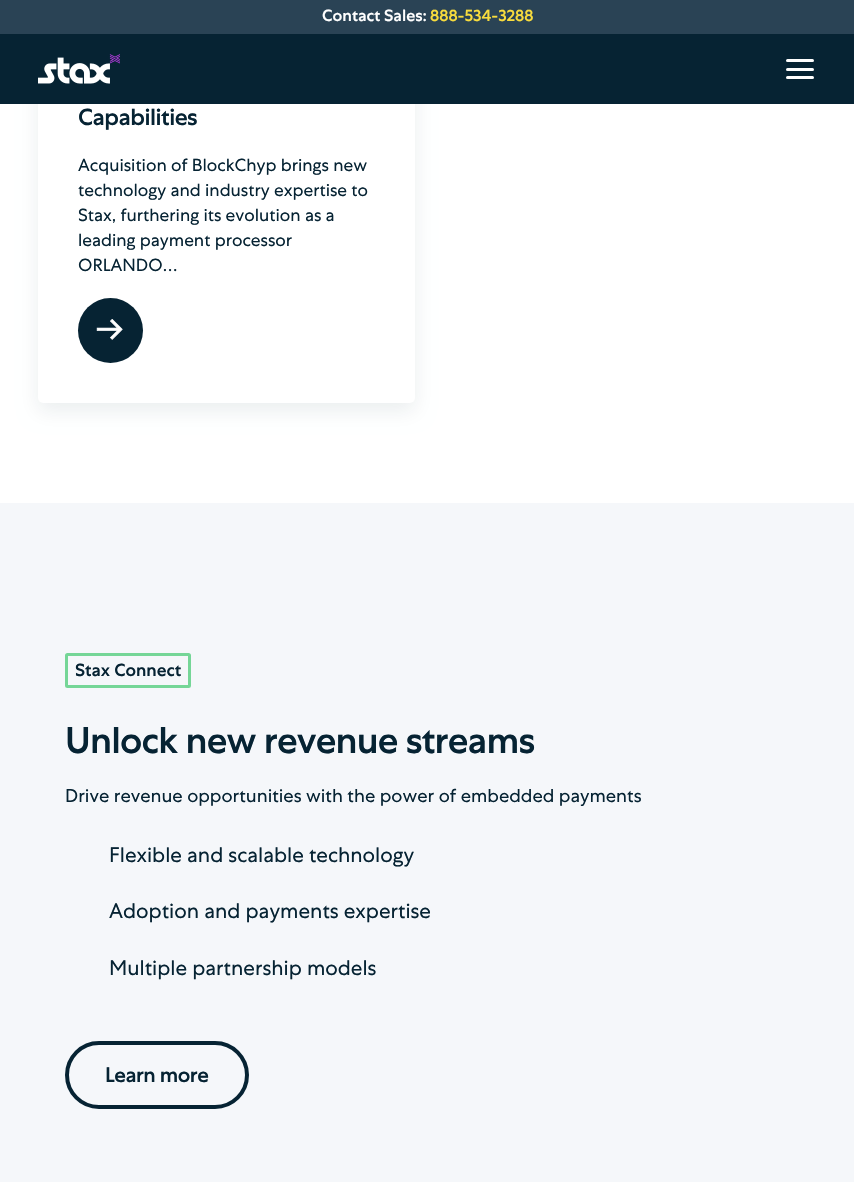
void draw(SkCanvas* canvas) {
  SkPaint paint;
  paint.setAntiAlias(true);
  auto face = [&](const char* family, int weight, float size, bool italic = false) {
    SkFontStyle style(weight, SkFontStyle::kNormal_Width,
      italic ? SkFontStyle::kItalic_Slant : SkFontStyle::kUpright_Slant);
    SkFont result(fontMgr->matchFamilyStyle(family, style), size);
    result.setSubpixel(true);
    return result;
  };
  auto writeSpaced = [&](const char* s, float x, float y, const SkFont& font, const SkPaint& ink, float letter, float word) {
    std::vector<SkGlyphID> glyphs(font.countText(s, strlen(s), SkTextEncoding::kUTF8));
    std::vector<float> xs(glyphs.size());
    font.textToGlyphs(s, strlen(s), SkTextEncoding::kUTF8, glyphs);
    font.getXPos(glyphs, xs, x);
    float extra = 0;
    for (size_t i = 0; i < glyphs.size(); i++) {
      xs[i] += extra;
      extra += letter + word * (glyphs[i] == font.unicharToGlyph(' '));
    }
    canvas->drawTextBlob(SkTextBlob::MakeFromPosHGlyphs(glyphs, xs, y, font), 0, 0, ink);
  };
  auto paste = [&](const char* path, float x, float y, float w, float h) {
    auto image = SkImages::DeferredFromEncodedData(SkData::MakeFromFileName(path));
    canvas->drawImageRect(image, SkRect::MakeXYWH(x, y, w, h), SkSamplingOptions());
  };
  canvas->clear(0xffffffff);
  paint.setColor(0x14062333);
  paint.setMaskFilter(SkMaskFilter::MakeBlur(kNormal_SkBlurStyle, 10));
  canvas->drawRoundRect(SkRect::MakeXYWH(38, -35, 377, 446), 5, 5, paint);
  paint.setMaskFilter(nullptr);
  paint.setColor(0xffffffff);
  canvas->drawRoundRect(SkRect::MakeXYWH(38, -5, 377, 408), 5, 5, paint);
  paint.setColor(0xff062333);
  canvas->drawRect(SkRect::MakeXYWH(0, 34, 854, 70), paint);
  paint.setColor(0xff2a4355);
  canvas->drawRect(SkRect::MakeXYWH(0, 0, 854, 34), paint);
  paste("img/1.png", 38, 54, 82, 30);
  paint.setColor(0xffffffff);
  canvas->drawRoundRect(SkRect::MakeXYWH(786, 59, 28, 3), 1.5f, 1.5f, paint);
  canvas->drawRoundRect(SkRect::MakeXYWH(786, 68, 28, 3), 1.5f, 1.5f, paint);
  canvas->drawRoundRect(SkRect::MakeXYWH(786, 76, 28, 3), 1.5f, 1.5f, paint);
  paint.setColor(0xff062333);
  canvas->drawCircle(110.5f, 330.5f, 32.5f, paint);
  paste("img/2.png", 96, 319, 27, 21);
  paint.setColor(0xfff5f7fa);
  canvas->drawRect(SkRect::MakeXYWH(0, 503, 854, 679), paint);
  paint.setStroke(true);
  paint.setStrokeWidth(3);
  paint.setColor(0xff75d697);
  canvas->drawRoundRect(SkRect::MakeXYWH(66.5f, 654.5f, 123, 32), 1, 1, paint);
  paint.setStrokeWidth(4);
  paint.setColor(0xff062333);
  canvas->drawRoundRect(SkRect::MakeXYWH(67, 1043, 180, 64), 32, 32, paint);
  auto f0 = face("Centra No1", 500, 16.25f);
  paint.setStroke(false);
  paint.setColor(0xffffffff);
  canvas->drawString("Contact Sales:", 322, 21, f0, paint);
  paint.setColor(0xfff8dc3d);
  canvas->drawString("888-534-3288", 430, 21, f0, paint);
  auto f1 = face("Centra No1", 500, 23.25f);
  paint.setColor(0xff062333);
  writeSpaced("Capabilities", 78, 125, f1, paint, -0.5f, 0);
  auto f2 = face("Centra No1", 400, 17.5f);
  {
    const struct { const char* s; float x, y; } items[] = {
      {"Acquisition of BlockChyp brings new", 78, 171},
      {"technology and industry expertise to", 78, 196},
      {"Stax, furthering its evolution as a", 78, 221},
      {"leading payment processor", 78, 246},
      {"ORLANDO…", 78, 271},
    };
    for (auto [s, x, y] : items) {
      canvas->drawString(s, x, y, f2, paint);
    }
  }
  auto f3 = face("Centra No1", 500, 17.5f);
  canvas->drawString("Stax Connect", 75, 676, f3, paint);
  auto f4 = face("Centra No1", 500, 37.1f);
  writeSpaced("Unlock new revenue streams", 65, 753, f4, paint, -0.8f, 0);
  auto f5 = face("Centra No1", 400, 18.55f);
  canvas->drawString("Drive revenue opportunities with the power of embedded payments", 65, 802, f5, paint);
  auto f6 = face("Centra No1", 400, 20.9f);
  {
    const struct { const char* s; float x, y; } items[] = {
      {"Flexible and scalable technology", 109, 862},
      {"Adoption and payments expertise", 109, 918},
      {"Multiple partnership models", 109, 975},
    };
    for (auto [s, x, y] : items) {
      canvas->drawString(s, x, y, f6, paint);
    }
  }
  auto f7 = face("Centra No1", 500, 20.9f);
  writeSpaced("Learn more", 105, 1082, f7, paint, -0.5f, 0);
}
